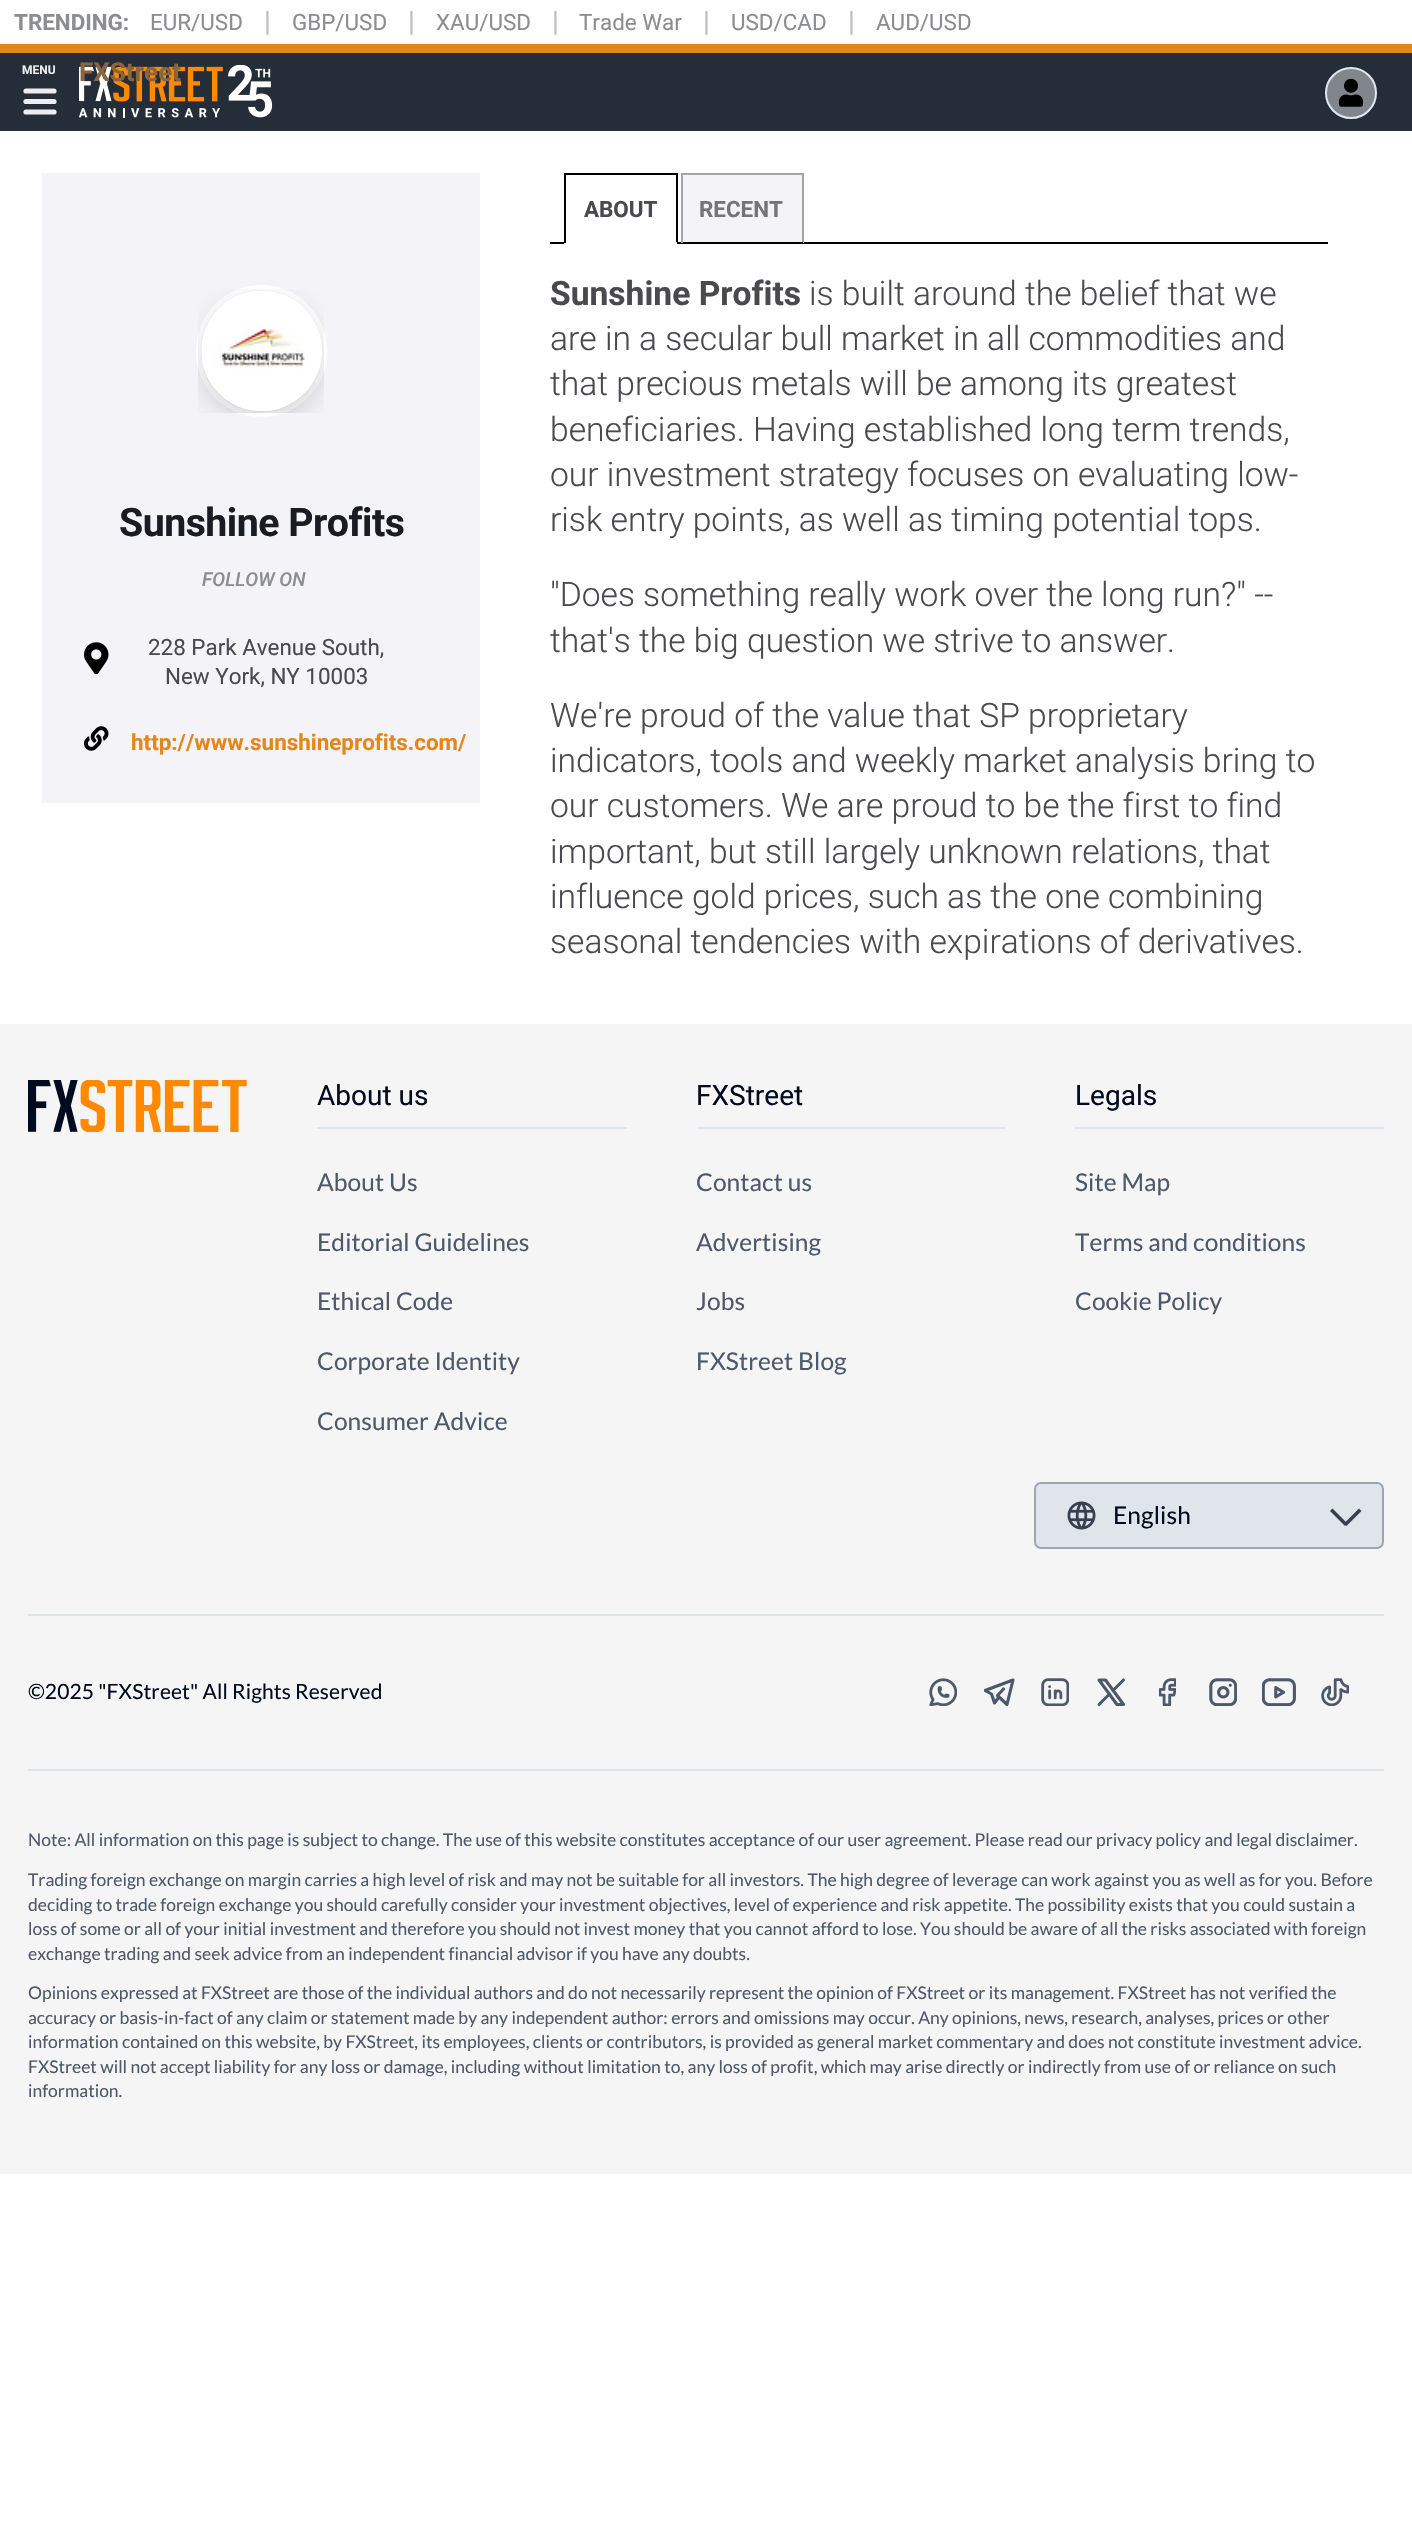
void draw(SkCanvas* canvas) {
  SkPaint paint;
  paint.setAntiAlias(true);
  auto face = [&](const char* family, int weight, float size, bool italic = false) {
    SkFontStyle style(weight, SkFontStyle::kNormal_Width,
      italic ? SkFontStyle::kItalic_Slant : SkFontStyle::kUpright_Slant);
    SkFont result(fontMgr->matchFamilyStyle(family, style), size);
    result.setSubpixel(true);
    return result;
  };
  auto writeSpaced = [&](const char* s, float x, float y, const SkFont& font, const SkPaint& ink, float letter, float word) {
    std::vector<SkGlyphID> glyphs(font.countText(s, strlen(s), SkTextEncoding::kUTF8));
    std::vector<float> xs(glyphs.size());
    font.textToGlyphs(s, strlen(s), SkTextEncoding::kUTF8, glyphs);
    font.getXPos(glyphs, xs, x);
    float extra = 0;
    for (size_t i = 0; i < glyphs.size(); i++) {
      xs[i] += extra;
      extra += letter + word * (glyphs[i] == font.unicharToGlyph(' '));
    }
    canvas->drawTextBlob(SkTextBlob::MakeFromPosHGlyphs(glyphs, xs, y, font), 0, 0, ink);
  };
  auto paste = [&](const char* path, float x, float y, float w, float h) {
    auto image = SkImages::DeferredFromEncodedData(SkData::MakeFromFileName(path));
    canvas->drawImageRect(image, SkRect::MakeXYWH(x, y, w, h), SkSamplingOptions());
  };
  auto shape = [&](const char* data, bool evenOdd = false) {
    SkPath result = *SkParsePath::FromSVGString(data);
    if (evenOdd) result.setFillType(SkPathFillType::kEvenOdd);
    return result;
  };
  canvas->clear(0xffffffff);
  paint.setColor(0xff242d38);
  canvas->drawRect(SkRect::MakeXYWH(0, 53, 1412, 78), paint);
  paint.setColor(0xffe4871b);
  canvas->drawRect(SkRect::MakeXYWH(0, 44, 1412, 9), paint);
  paint.setStroke(true);
  paint.setStrokeWidth(5.2f);
  paint.setStrokeCap(SkPaint::kRound_Cap);
  paint.setStrokeJoin(SkPaint::kRound_Join);
  paint.setColor(0xffececf1);
  canvas->drawPath(shape("M26 91H54M26 101.5H54M26 112H54"), paint);
  paste("img/1.png", 79, 65, 194, 53);
  paint.setStroke(false);
  paint.setColor(0xff81868c);
  canvas->drawCircle(1351, 93, 25, paint);
  paint.setStroke(true);
  paint.setStrokeWidth(2);
  paint.setStrokeCap(SkPaint::kButt_Cap);
  paint.setStrokeJoin(SkPaint::kMiter_Join);
  paint.setColor(0xffe0e8f2);
  canvas->drawCircle(1351, 93, 25, paint);
  paste("img/2.png", 1339, 79, 24, 28);
  paint.setStroke(false);
  paint.setColor(0xfff3f3f8);
  canvas->drawRect(SkRect::MakeXYWH(42, 173, 438, 630), paint);
  paint.setStroke(true);
  paint.setStrokeWidth(5);
  paint.setColor(0xffffffff);
  canvas->drawRoundRect(SkRect::MakeXYWH(198.5f, 287.5f, 126, 127), 63, 63, paint);
  paste("img/3.png", 198, 289, 126, 124);
  paste("img/4.png", 84, 642, 25, 32);
  paste("img/5.png", 84, 726, 25, 25);
  paint.setStroke(false);
  {
    const struct { float x, y, w, h; SkColor color; } items[] = {
      {550, 242, 778, 2, 0xff000000},
      {564, 173, 113, 2, 0xff000000},
      {676, 173, 2, 70, 0xff000000},
      {564, 242, 113, 2, 0xffffffff},
      {564, 173, 2, 70, 0xff000000},
      {683, 175, 119, 67, 0xfff3f3f8},
      {681, 173, 122, 2, 0xffa3a3a8},
      {802, 173, 2, 70, 0xffa3a3a8},
      {802, 242, 1, 1, 0xff000000},
      {681, 173, 2, 70, 0xffa3a3a8},
      {0, 1024, 1412, 1150, 0xfff5f5f5},
    };
    for (auto [x, y, w, h, color] : items) {
      paint.setColor(color);
      canvas->drawRect(SkRect::MakeXYWH(x, y, w, h), paint);
    }
  }
  paste("img/6.png", 28, 1080, 219, 52);
  {
    const struct { float x, y, w, h; SkColor color; } items[] = {
      {317, 1127, 310, 2, 0xffe0e4eb},
      {697, 1127, 308, 2, 0xffe0e4eb},
      {1075, 1127, 309, 2, 0xffe0e4eb},
    };
    for (auto [x, y, w, h, color] : items) {
      paint.setColor(color);
      canvas->drawRect(SkRect::MakeXYWH(x, y, w, h), paint);
    }
  }
  canvas->drawRoundRect(SkRect::MakeXYWH(1035, 1483, 348, 65), 6, 6, paint);
  paint.setStroke(true);
  paint.setStrokeWidth(2);
  paint.setColor(0xff9aa6b6);
  canvas->drawRoundRect(SkRect::MakeXYWH(1035, 1483, 348, 65), 6, 6, paint);
  paste("img/7.png", 1067, 1501, 29, 29);
  paint.setStroke(false);
  paint.setColor(0xff37404e);
  canvas->drawPath(shape("M1359 1508.5L1361.5 1511L1346.5 1526L1344 1523.5Z"), paint);
  canvas->drawPath(shape("M1330 1511L1332.5 1508.5L1347.5 1523.5L1345 1526Z"), paint);
  paint.setColor(0xffe0e3ea);
  canvas->drawRect(SkRect::MakeXYWH(28, 1614, 1356, 2), paint);
  paste("img/8.png", 929, 1678, 28, 28);
  canvas->save();
  canvas->clipRect(SkRect::MakeXYWH(984, 1678, 31, 28));
  paint.setStroke(true);
  paint.setStrokeWidth(3.1f);
  paint.setStrokeCap(SkPaint::kRound_Cap);
  paint.setStrokeJoin(SkPaint::kRound_Join);
  paint.setColor(0xff4d596a);
  canvas->drawPath(shape("M1003.5 1689L997.5 1695.5L1007 1704.5L1013 1680L985 1690.5L991.5 1694L994.5 1703L999 1697"), paint);
  canvas->restore();
  paste("img/9.png", 1041, 1678, 28, 28);
  canvas->save();
  canvas->clipRect(SkRect::MakeXYWH(1097, 1678, 28, 28));
  canvas->drawPath(shape("M1099 1680L1117 1704.5H1123.5L1105.5 1680Z"), paint);
  canvas->restore();
  canvas->drawPath(shape("M1099 1704.5L1109.5 1694M1113 1690.5L1123.5 1680"), paint);
  paste("img/10.png", 1159, 1678, 17, 28);
  paste("img/11.png", 1209, 1678, 28, 28);
  paste("img/12.png", 1262, 1678, 34, 28);
  paste("img/13.png", 1321, 1678, 28, 28);
  paint.setStroke(false);
  paint.setColor(0xffe0e3ea);
  canvas->drawRect(SkRect::MakeXYWH(28, 1769, 1356, 2), paint);
  auto f0 = face("Roboto", 700, 22.4f);
  paint.setColor(0xff8c8d91);
  canvas->drawString("TRENDING:", 14, 30, f0, paint);
  auto f1 = face("Roboto", 400, 22.4f);
  canvas->drawString("EUR/USD", 150, 30, f1, paint);
  auto f2 = face("Roboto", 400, 28);
  paint.setColor(0xffbdbdc2);
  canvas->drawString("|", 264, 31, f2, paint);
  paint.setColor(0xff8c8d91);
  canvas->drawString("GBP/USD", 292, 30, f1, paint);
  paint.setColor(0xffbdbdc2);
  canvas->drawString("|", 408, 31, f2, paint);
  paint.setColor(0xff8c8d91);
  canvas->drawString("XAU/USD", 436, 30, f1, paint);
  paint.setColor(0xffbdbdc2);
  canvas->drawString("|", 552, 31, f2, paint);
  paint.setColor(0xff8c8d91);
  canvas->drawString("Trade War", 579, 30, f1, paint);
  paint.setColor(0xffbdbdc2);
  canvas->drawString("|", 703, 31, f2, paint);
  paint.setColor(0xff8c8d91);
  canvas->drawString("USD/CAD", 731, 30, f1, paint);
  paint.setColor(0xffbdbdc2);
  canvas->drawString("|", 848, 31, f2, paint);
  paint.setColor(0xff8c8d91);
  canvas->drawString("AUD/USD", 876, 30, f1, paint);
  auto f3 = face("Roboto", 700, 12);
  paint.setColor(0xffececf1);
  canvas->drawString("MENU", 22, 74, f3, paint);
  auto f4 = face("Roboto", 700, 26);
  paint.setColor(0xff89663e);
  canvas->drawString("FXStreet", 79, 81, f4, paint);
  auto f5 = face("Roboto", 700, 39.25f);
  paint.setColor(0xff1b1c23);
  writeSpaced("Sunshine Profits", 119, 536, f5, paint, -0.5f, 0);
  auto f6 = face("Roboto", 500, 19.25f, true);
  paint.setColor(0xff8c8d91);
  canvas->drawString("FOLLOW ON", 202, 586, f6, paint);
  paint.setColor(0xff49494f);
  canvas->drawString("228 Park Avenue South,", 148, 655, f1, paint);
  canvas->drawString("New York, NY 10003", 165, 684, f1, paint);
  paint.setColor(0xffe4871b);
  canvas->drawString("http://www.sunshineprofits.com/", 131, 750, f0, paint);
  paint.setColor(0xff49494f);
  canvas->drawString("ABOUT", 584, 217, f0, paint);
  paint.setColor(0xff747479);
  canvas->drawString("RECENT", 699, 217, f0, paint);
  auto f7 = face("Roboto", 700, 33.6f);
  paint.setColor(0xff49494f);
  canvas->drawString("Sunshine Profits", 550, 305, f7, paint);
  auto f8 = face("Roboto", 300, 33.6f);
  {
    const struct { const char* s; float x, y; } items[] = {
      {"is built around the belief that we", 809, 305},
      {"are in a secular bull market in all commodities and", 550, 350},
      {"that precious metals will be among its greatest", 550, 395},
      {"beneficiaries. Having established long term trends,", 550, 441},
      {"our investment strategy focuses on evaluating low-", 550, 486},
      {"risk entry points, as well as timing potential tops.", 550, 531},
      {"\"Does something really work over the long run?\" --", 550, 606},
      {"that's the big question we strive to answer.", 550, 652},
      {"We're proud of the value that SP proprietary", 550, 727},
      {"indicators, tools and weekly market analysis bring to", 550, 772},
      {"our customers. We are proud to be the first to find", 550, 817},
      {"important, but still largely unknown relations, that", 550, 863},
      {"influence gold prices, such as the one combining", 550, 908},
      {"seasonal tendencies with expirations of derivatives.", 550, 953},
    };
    for (auto [s, x, y] : items) {
      canvas->drawString(s, x, y, f8, paint);
    }
  }
  paint.setColor(0xff000b1f);
  canvas->drawString("About us", 317, 1105, f2, paint);
  auto f9 = face("Lato", 400, 24.5f);
  paint.setColor(0xff4d596a);
  {
    const struct { const char* s; float x, y; } items[] = {
      {"About Us", 317, 1191},
      {"Editorial Guidelines", 317, 1251},
      {"Ethical Code", 317, 1310},
      {"Corporate Identity", 317, 1370},
      {"Consumer Advice", 317, 1430},
    };
    for (auto [s, x, y] : items) {
      writeSpaced(s, x, y, f9, paint, 0.1f, 0);
    }
  }
  paint.setColor(0xff000b1f);
  canvas->drawString("FXStreet", 696, 1105, f2, paint);
  paint.setColor(0xff4d596a);
  {
    const struct { const char* s; float x, y; } items[] = {
      {"Contact us", 696, 1191},
      {"Advertising", 696, 1251},
      {"Jobs", 696, 1310},
      {"FXStreet Blog", 696, 1370},
    };
    for (auto [s, x, y] : items) {
      writeSpaced(s, x, y, f9, paint, 0.1f, 0);
    }
  }
  paint.setColor(0xff000b1f);
  canvas->drawString("Legals", 1075, 1105, f2, paint);
  paint.setColor(0xff4d596a);
  {
    const struct { const char* s; float x, y; } items[] = {
      {"Site Map", 1075, 1191},
      {"Terms and conditions", 1075, 1251},
      {"Cookie Policy", 1075, 1310},
    };
    for (auto [s, x, y] : items) {
      writeSpaced(s, x, y, f9, paint, 0.1f, 0);
    }
  }
  paint.setColor(0xff000b1f);
  writeSpaced("English", 1113, 1524, f9, paint, 0.1f, 0);
  auto f10 = face("Lato", 400, 21);
  writeSpaced("©2025 \"FXStreet\" All Rights Reserved", 28, 1699, f10, paint, 0.1f, 0);
  auto f11 = face("Lato", 400, 17.5f);
  paint.setColor(0xff4d596a);
  {
    const struct { const char* s; float x, y; } items[] = {
      {"Note: All information on this page is subject to change. The use of this website constitutes acceptance of our user agreement. Please read our privacy policy and legal disclaimer.", 28, 1846},
      {"Trading foreign exchange on margin carries a high level of risk and may not be suitable for all investors. The high degree of leverage can work against you as well as for you. Before", 28, 1886},
      {"deciding to trade foreign exchange you should carefully consider your investment objectives, level of experience and risk appetite. The possibility exists that you could sustain a", 28, 1911},
      {"loss of some or all of your initial investment and therefore you should not invest money that you cannot afford to lose. You should be aware of all the risks associated with foreign", 28, 1935},
      {"exchange trading and seek advice from an independent financial advisor if you have any doubts.", 28, 1960},
      {"Opinions expressed at FXStreet are those of the individual authors and do not necessarily represent the opinion of FXStreet or its management. FXStreet has not verified the", 28, 1999},
      {"accuracy or basis-in-fact of any claim or statement made by any independent author: errors and omissions may occur. Any opinions, news, research, analyses, prices or other", 28, 2024},
      {"information contained on this website, by FXStreet, its employees, clients or contributors, is provided as general market commentary and does not constitute investment advice.", 28, 2048},
      {"FXStreet will not accept liability for any loss or damage, including without limitation to, any loss of profit, which may arise directly or indirectly from use of or reliance on such", 28, 2073},
      {"information.", 28, 2097},
    };
    for (auto [s, x, y] : items) {
      canvas->drawString(s, x, y, f11, paint);
    }
  }
}
